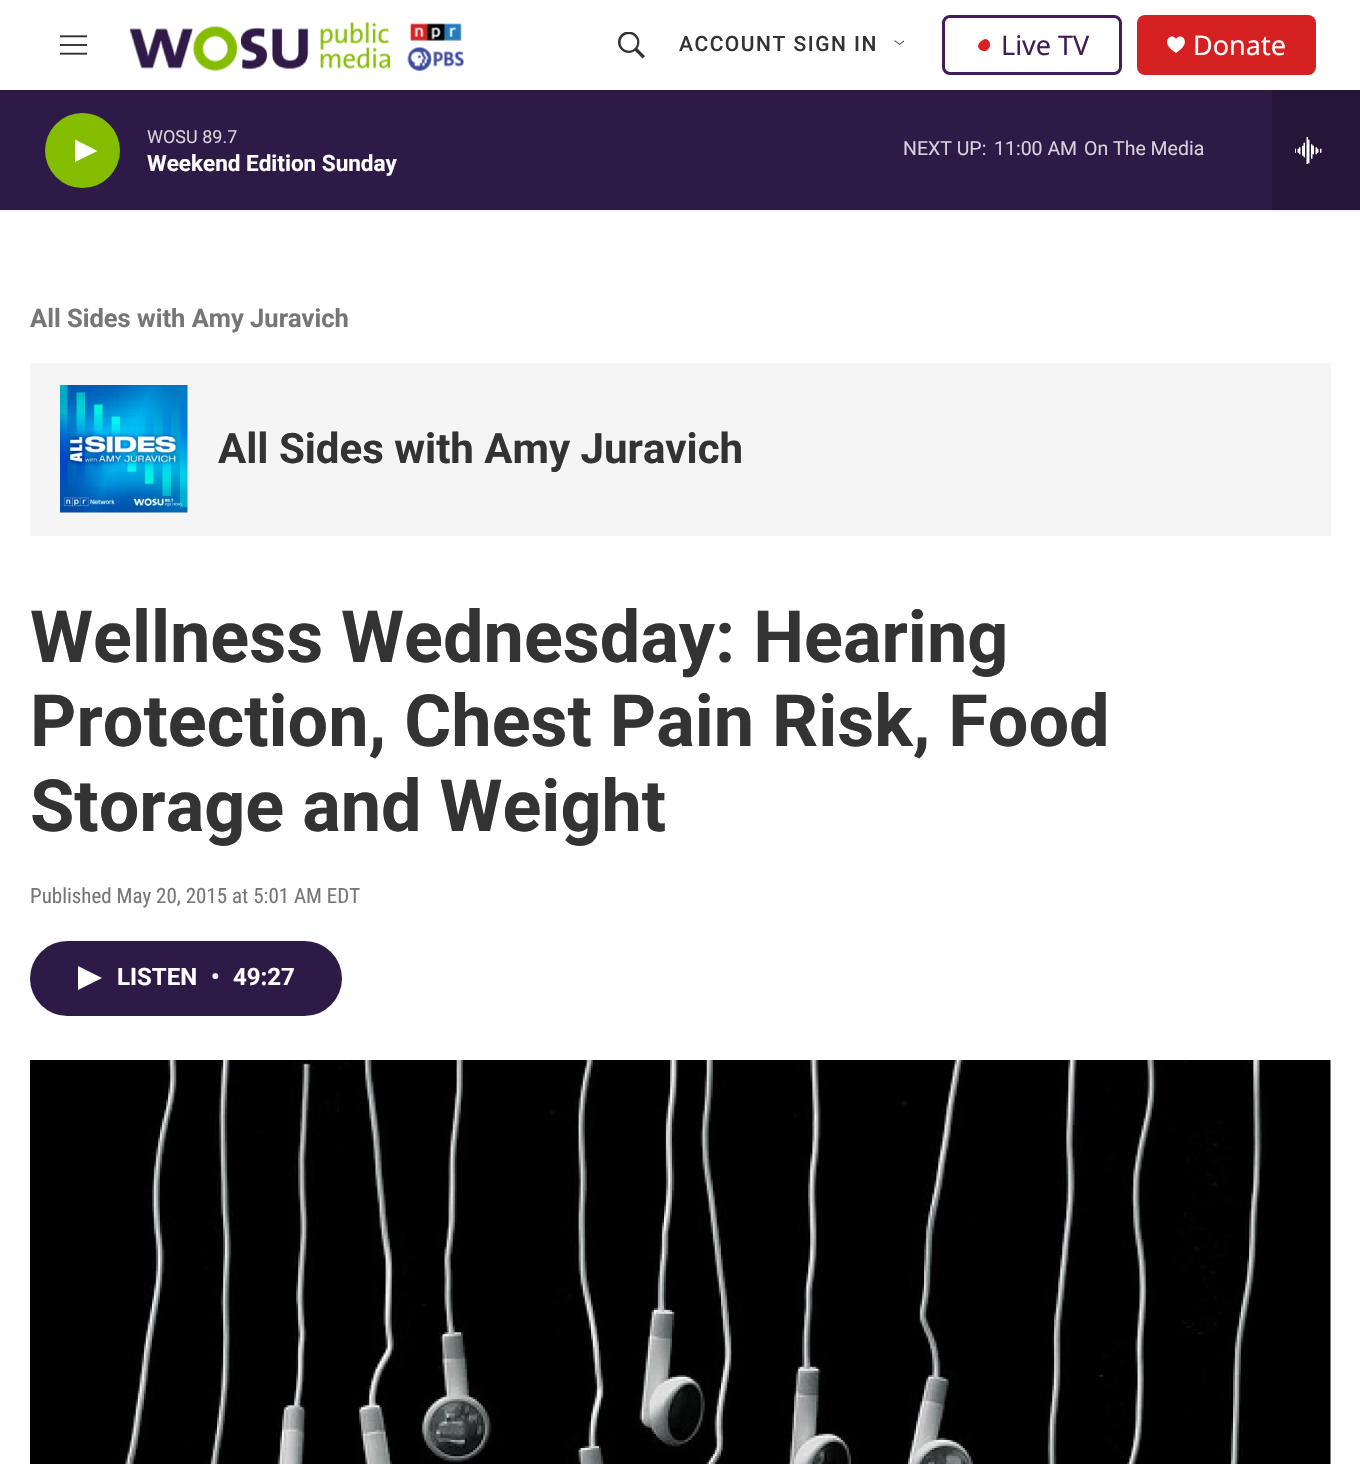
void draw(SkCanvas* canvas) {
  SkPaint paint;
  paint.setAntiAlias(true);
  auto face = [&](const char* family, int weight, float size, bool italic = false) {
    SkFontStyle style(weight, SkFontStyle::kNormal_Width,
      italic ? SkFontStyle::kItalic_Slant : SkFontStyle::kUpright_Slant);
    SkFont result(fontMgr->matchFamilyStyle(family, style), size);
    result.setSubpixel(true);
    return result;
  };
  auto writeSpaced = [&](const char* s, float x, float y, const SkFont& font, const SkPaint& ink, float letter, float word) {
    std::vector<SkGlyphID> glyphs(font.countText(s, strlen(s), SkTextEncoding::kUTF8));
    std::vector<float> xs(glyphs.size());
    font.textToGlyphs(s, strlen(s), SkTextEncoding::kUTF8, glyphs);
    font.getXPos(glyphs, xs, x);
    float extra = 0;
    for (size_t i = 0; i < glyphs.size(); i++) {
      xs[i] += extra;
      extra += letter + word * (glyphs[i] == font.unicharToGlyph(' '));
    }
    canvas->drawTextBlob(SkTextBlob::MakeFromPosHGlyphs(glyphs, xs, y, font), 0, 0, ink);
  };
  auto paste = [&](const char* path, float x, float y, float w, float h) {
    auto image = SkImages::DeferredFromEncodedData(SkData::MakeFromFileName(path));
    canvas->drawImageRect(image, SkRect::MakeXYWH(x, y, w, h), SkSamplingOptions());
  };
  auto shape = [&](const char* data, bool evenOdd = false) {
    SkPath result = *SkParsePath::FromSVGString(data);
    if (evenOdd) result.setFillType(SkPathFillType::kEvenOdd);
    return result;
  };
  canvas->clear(0xffffffff);
  paint.setColor(0xfff5f5f5);
  canvas->drawRect(SkRect::MakeXYWH(0, 210, 1360, 2), paint);
  paste("img/1.png", 60, 35, 27, 20);
  paste("img/2.png", 129, 22, 336, 49);
  paste("img/3.png", 618, 32, 27, 27);
  paste("img/4.png", 894, 40, 11, 5);
  paint.setStroke(true);
  paint.setStrokeWidth(3);
  paint.setColor(0xff411c58);
  canvas->drawRoundRect(SkRect::MakeXYWH(943.5f, 16.5f, 177, 57), 6.5f, 6.5f, paint);
  paint.setStroke(false);
  paint.setColor(0xffd62021);
  canvas->drawPath(shape("M985.5 39C995 41.5 988 56 980 49.5C979.5 49 978 47.5 978 46.5C978 43 982 39.5 985.5 39Z"), paint);
  paint.setColor(0xffd52122);
  canvas->drawRoundRect(SkRect::MakeXYWH(1137, 15, 179, 60), 8, 8, paint);
  paint.setColor(0xffffffff);
  canvas->drawPath(shape("M1176 39.5C1173 31.5 1157.5 41.5 1176 53C1194.5 41.5 1179 31.5 1176 39.5Z"), paint);
  paint.setColor(0xff2e1a47);
  canvas->drawRect(SkRect::MakeXYWH(0, 90, 1272, 120), paint);
  paint.setColor(0xff84bd00);
  canvas->drawCircle(82.5f, 150.5f, 37.5f, paint);
  paint.setColor(0xffffffff);
  canvas->drawPath(shape("M75 139.5L97.5 151L75 162Z"), paint);
  paint.setColor(0xff251539);
  canvas->drawRect(SkRect::MakeXYWH(1272, 90, 88, 120), paint);
  paste("img/5.png", 1295, 137, 27, 27);
  paint.setColor(0xfff5f5f5);
  canvas->drawRect(SkRect::MakeXYWH(30, 363, 1301, 173), paint);
  paste("img/6.png", 60, 385, 128, 128);
  paint.setColor(0xff2e1a47);
  canvas->drawRoundRect(SkRect::MakeXYWH(30, 941, 312, 75), 37.5f, 37.5f, paint);
  paint.setColor(0xffffffff);
  canvas->drawPath(shape("M78 966L102 978L78 990Z"), paint);
  paste("img/7.png", 30, 1060, 1301, 404);
  auto f0 = face("Roboto", 500, 21);
  paint.setColor(0xff333333);
  writeSpaced("ACCOUNT SIGN IN", 679, 51, f0, paint, 1.5f, 0);
  auto f1 = face("Noto Sans", 400, 27);
  paint.setColor(0xff411c58);
  canvas->drawString("Live TV", 1001, 55, f1, paint);
  paint.setColor(0xffffffff);
  canvas->drawString("Donate", 1193, 55, f1, paint);
  auto f2 = face("Roboto", 400, 18);
  paint.setColor(0xffd5d1da);
  canvas->drawString("WOSU 89.7", 147, 143, f2, paint);
  auto f3 = face("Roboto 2", 700, 22.5f);
  paint.setColor(0xffffffff);
  canvas->drawString("Weekend Edition Sunday", 147, 171, f3, paint);
  auto f4 = face("Roboto", 400, 19.5f);
  paint.setColor(0xffd5d1da);
  {
    const struct { const char* s; float x, y; } items[] = {
      {"NEXT UP:", 903, 155},
      {"11:00 AM", 994, 155},
      {"On The Media", 1084, 155},
    };
    for (auto [s, x, y] : items) {
      canvas->drawString(s, x, y, f4, paint);
    }
  }
  auto f5 = face("Roboto", 700, 25.5f);
  paint.setColor(0xff767676);
  canvas->drawString("All Sides with Amy Juravich", 30, 327, f5, paint);
  auto f6 = face("Roboto", 700, 42);
  paint.setColor(0xff333333);
  canvas->drawString("All Sides with Amy Juravich", 218, 463, f6, paint);
  auto f7 = face("Roboto", 700, 72);
  {
    const struct { const char* s; float x, y; } items[] = {
      {"Wellness Wednesday: Hearing", 30, 662},
      {"Protection, Chest Pain Risk, Food", 30, 746},
      {"Storage and Weight", 30, 831},
    };
    for (auto [s, x, y] : items) {
      canvas->drawString(s, x, y, f7, paint);
    }
  }
  auto f8 = face("Roboto Condensed", 400, 21);
  paint.setColor(0xff767676);
  canvas->drawString("Published May 20, 2015 at 5:01 AM EDT", 30, 903, f8, paint);
  auto f9 = face("Roboto 2", 700, 24);
  paint.setColor(0xffffffff);
  {
    const struct { const char* s; float x, y; } items[] = {
      {"LISTEN", 117, 985},
      {"•", 211, 985},
      {"49:27", 233, 985},
    };
    for (auto [s, x, y] : items) {
      canvas->drawString(s, x, y, f9, paint);
    }
  }
}
